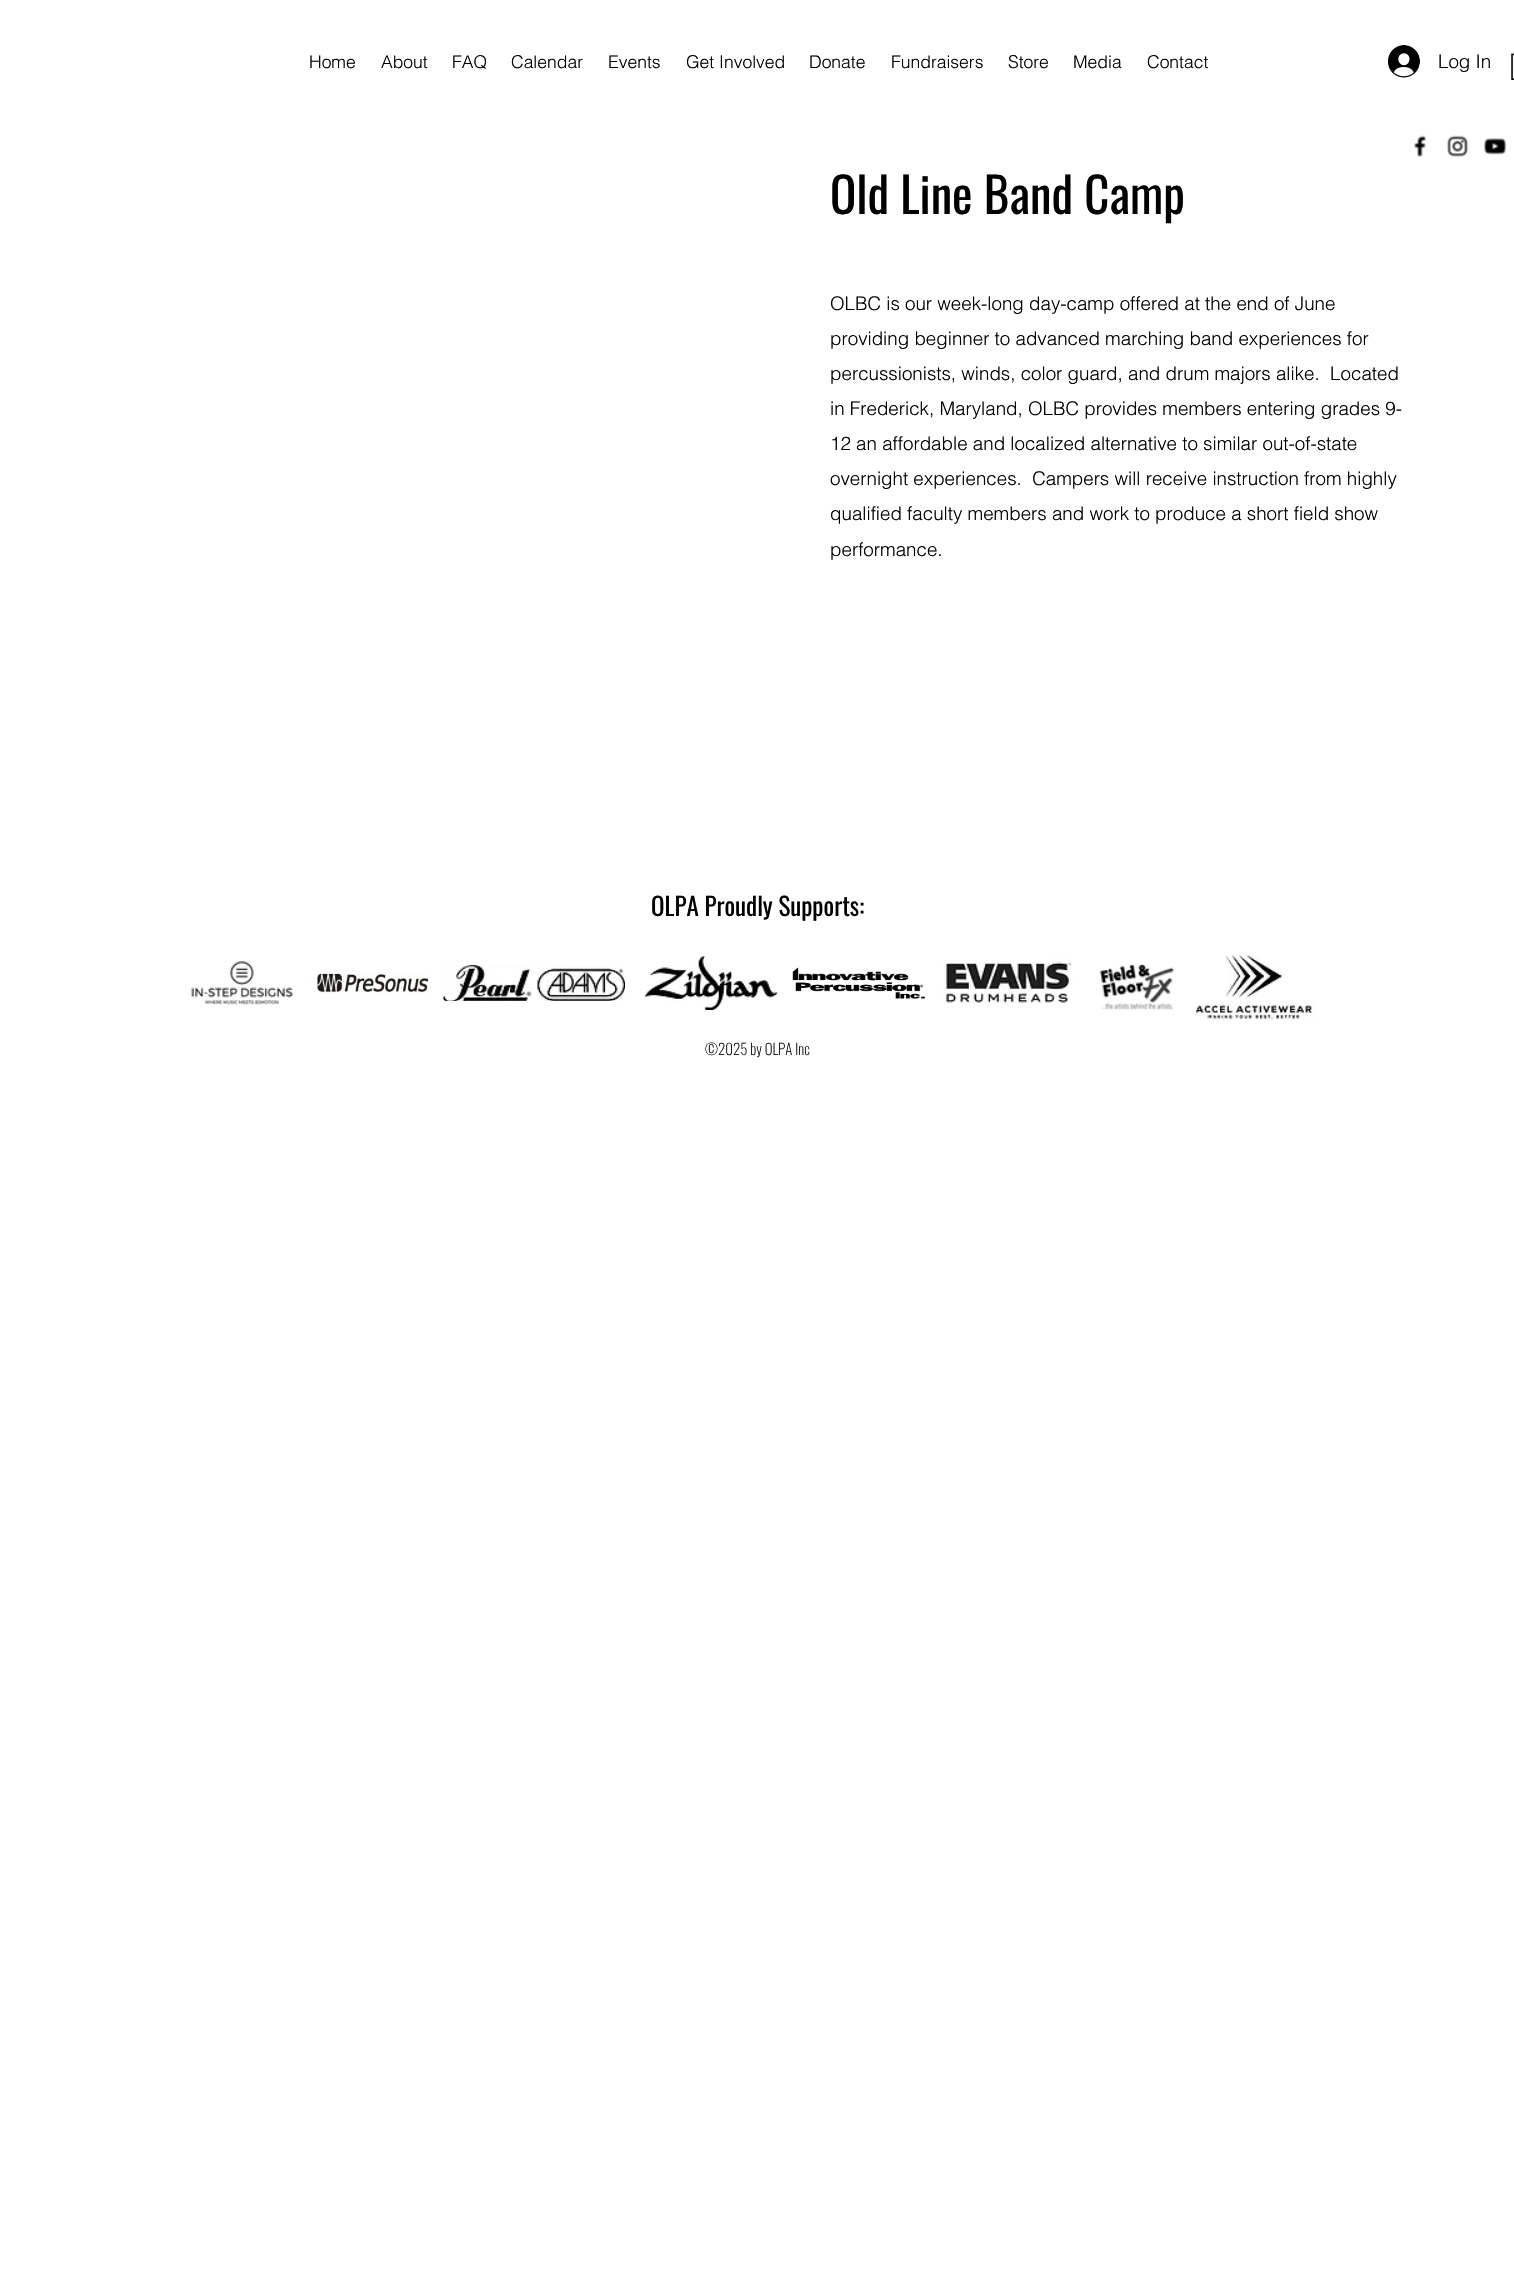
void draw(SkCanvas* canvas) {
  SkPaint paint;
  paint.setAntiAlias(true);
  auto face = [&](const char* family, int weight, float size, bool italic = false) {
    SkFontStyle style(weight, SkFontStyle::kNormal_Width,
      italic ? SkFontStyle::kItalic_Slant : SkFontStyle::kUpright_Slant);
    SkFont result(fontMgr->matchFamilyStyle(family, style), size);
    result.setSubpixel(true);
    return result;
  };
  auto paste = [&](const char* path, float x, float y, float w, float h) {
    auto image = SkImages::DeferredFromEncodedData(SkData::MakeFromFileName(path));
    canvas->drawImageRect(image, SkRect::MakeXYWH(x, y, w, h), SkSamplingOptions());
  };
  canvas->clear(0xffffffff);
  paste("img/1.png", 1388, 45, 32, 33);
  paste("img/2.png", 1511, 53, 3, 27);
  paste("img/3.png", 1414, 135, 12, 22);
  paste("img/4.png", 1447, 135, 22, 22);
  paste("img/5.png", 1483, 138, 24, 17);
  paste("img/6.png", 191, 961, 102, 44);
  paste("img/7.png", 317, 973, 112, 20);
  paste("img/8.png", 443, 965, 182, 36);
  paste("img/9.png", 645, 956, 133, 54);
  paste("img/10.png", 792, 967, 133, 32);
  paste("img/11.png", 943, 959, 130, 44);
  paste("img/12.png", 1099, 964, 75, 46);
  paste("img/13.png", 1195, 952, 120, 69);
  auto f0 = face("helvetica", 300, 17.5f);
  paint.setColor(0xff000000);
  {
    const struct { const char* s; float x, y; } items[] = {
      {"Home", 309, 68},
      {"About", 381, 68},
      {"FAQ", 452, 68},
      {"Calendar", 511, 68},
      {"Events", 608, 68},
      {"Get Involved", 686, 68},
      {"Donate", 809, 68},
      {"Fundraisers", 891, 68},
      {"Store", 1008, 68},
      {"Media", 1073, 68},
      {"Contact", 1147, 68},
    };
    for (auto [s, x, y] : items) {
      canvas->drawString(s, x, y, f0, paint);
    }
  }
  auto f1 = face("helvetica", 300, 18.75f);
  canvas->drawString("Log In", 1438, 68, f1, paint);
  auto f2 = face("Oswald", 400, 48.75f);
  canvas->drawString("Old Line Band Camp", 830, 214, f2, paint);
  {
    const struct { const char* s; float x, y; } items[] = {
      {"OLBC is our week-long day-camp offered at the end of June", 830, 310},
      {"providing beginner to advanced marching band experiences for", 830, 345},
      {"percussionists, winds, color guard, and drum majors alike.  Located", 830, 380},
      {"in Frederick, Maryland, OLBC provides members entering grades 9-", 830, 415},
      {"12 an affordable and localized alternative to similar out-of-state", 830, 450},
      {"overnight experiences.  Campers will receive instruction from highly", 830, 485},
      {"qualified faculty members and work to produce a short field show", 830, 520},
      {"performance.", 830, 556},
    };
    for (auto [s, x, y] : items) {
      canvas->drawString(s, x, y, f1, paint);
    }
  }
  auto f3 = face("Oswald", 400, 25);
  canvas->drawString("OLPA Proudly Supports:", 651, 916, f3, paint);
  auto f4 = face("Oswald", 200, 15);
  canvas->drawString("©2025 by OLPA Inc", 705, 1055, f4, paint);
}
